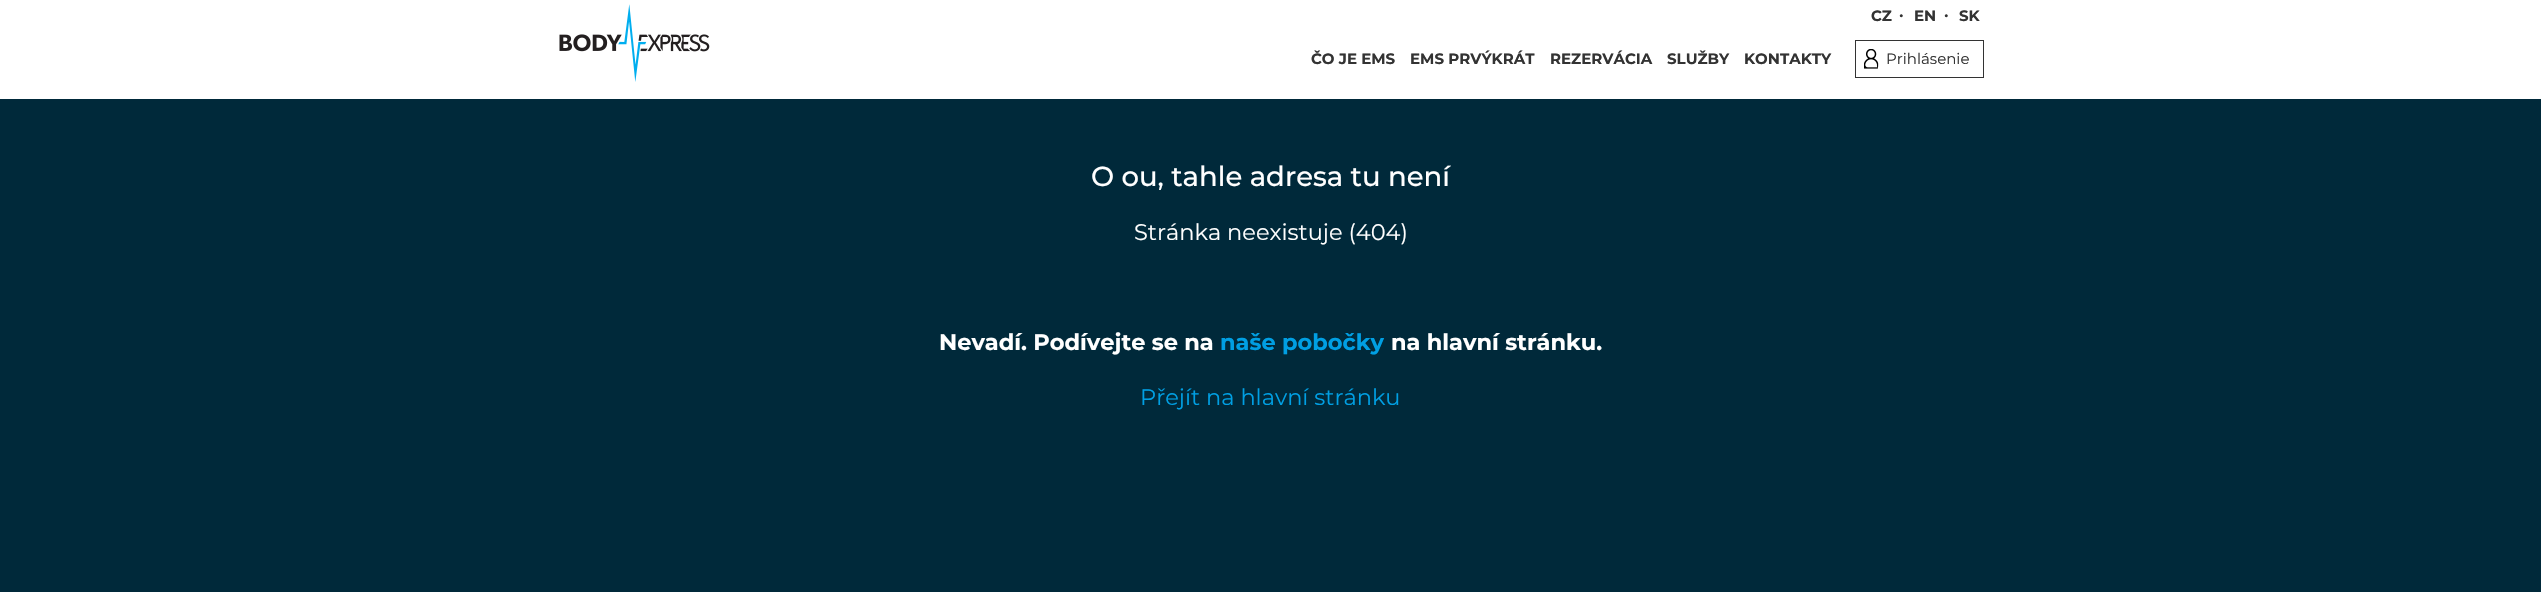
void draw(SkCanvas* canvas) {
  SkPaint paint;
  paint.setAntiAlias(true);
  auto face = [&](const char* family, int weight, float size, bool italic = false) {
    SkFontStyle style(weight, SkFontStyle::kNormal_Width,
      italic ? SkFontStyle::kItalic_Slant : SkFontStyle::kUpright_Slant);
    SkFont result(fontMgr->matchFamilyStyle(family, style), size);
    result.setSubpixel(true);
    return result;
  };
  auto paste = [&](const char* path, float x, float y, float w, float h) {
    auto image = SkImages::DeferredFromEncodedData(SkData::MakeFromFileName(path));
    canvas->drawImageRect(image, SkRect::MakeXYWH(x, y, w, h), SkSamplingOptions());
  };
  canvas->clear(0xff00293a);
  paint.setColor(0xffffffff);
  canvas->drawRect(SkRect::MakeXYWH(0, 0, 2541, 99), paint);
  paste("img/1.png", 559, 4, 151, 78);
  paste("img/2.png", 1864, 49, 15, 20);
  paint.setStroke(true);
  paint.setStrokeWidth(1);
  paint.setColor(0xff333333);
  canvas->drawRect(SkRect::MakeXYWH(1855.5f, 40.5f, 128, 37), paint);
  auto f0 = face("Montserrat", 700, 15);
  paint.setStroke(false);
  {
    const struct { const char* s; float x, y; } items[] = {
      {"CZ", 1871, 21},
      {"·", 1899, 20},
      {"EN", 1914, 21},
      {"·", 1944, 20},
      {"SK", 1959, 21},
      {"ČO JE EMS", 1311, 64},
      {"EMS PRVÝKRÁT", 1410, 64},
      {"REZERVÁCIA", 1550, 64},
      {"SLUŽBY", 1667, 64},
      {"KONTAKTY", 1744, 64},
    };
    for (auto [s, x, y] : items) {
      canvas->drawString(s, x, y, f0, paint);
    }
  }
  auto f1 = face("Montserrat", 400, 15);
  canvas->drawString("Prihlásenie", 1886, 64, f1, paint);
  auto f2 = face("Montserrat", 500, 27.5f);
  paint.setColor(0xffffffff);
  canvas->drawString("O ou, tahle adresa tu není", 1091, 186, f2, paint);
  auto f3 = face("Montserrat", 400, 22.5f);
  canvas->drawString("Stránka neexistuje (404)", 1134, 240, f3, paint);
  auto f4 = face("Montserrat", 700, 22.5f);
  canvas->drawString("Nevadí. Podívejte se na", 939, 350, f4, paint);
  paint.setColor(0xff009fe3);
  canvas->drawString("naše pobočky", 1220, 350, f4, paint);
  paint.setColor(0xffffffff);
  canvas->drawString("na hlavní stránku.", 1391, 350, f4, paint);
  paint.setColor(0xff009fe3);
  canvas->drawString("Přejít na hlavní stránku", 1140, 405, f3, paint);
}
